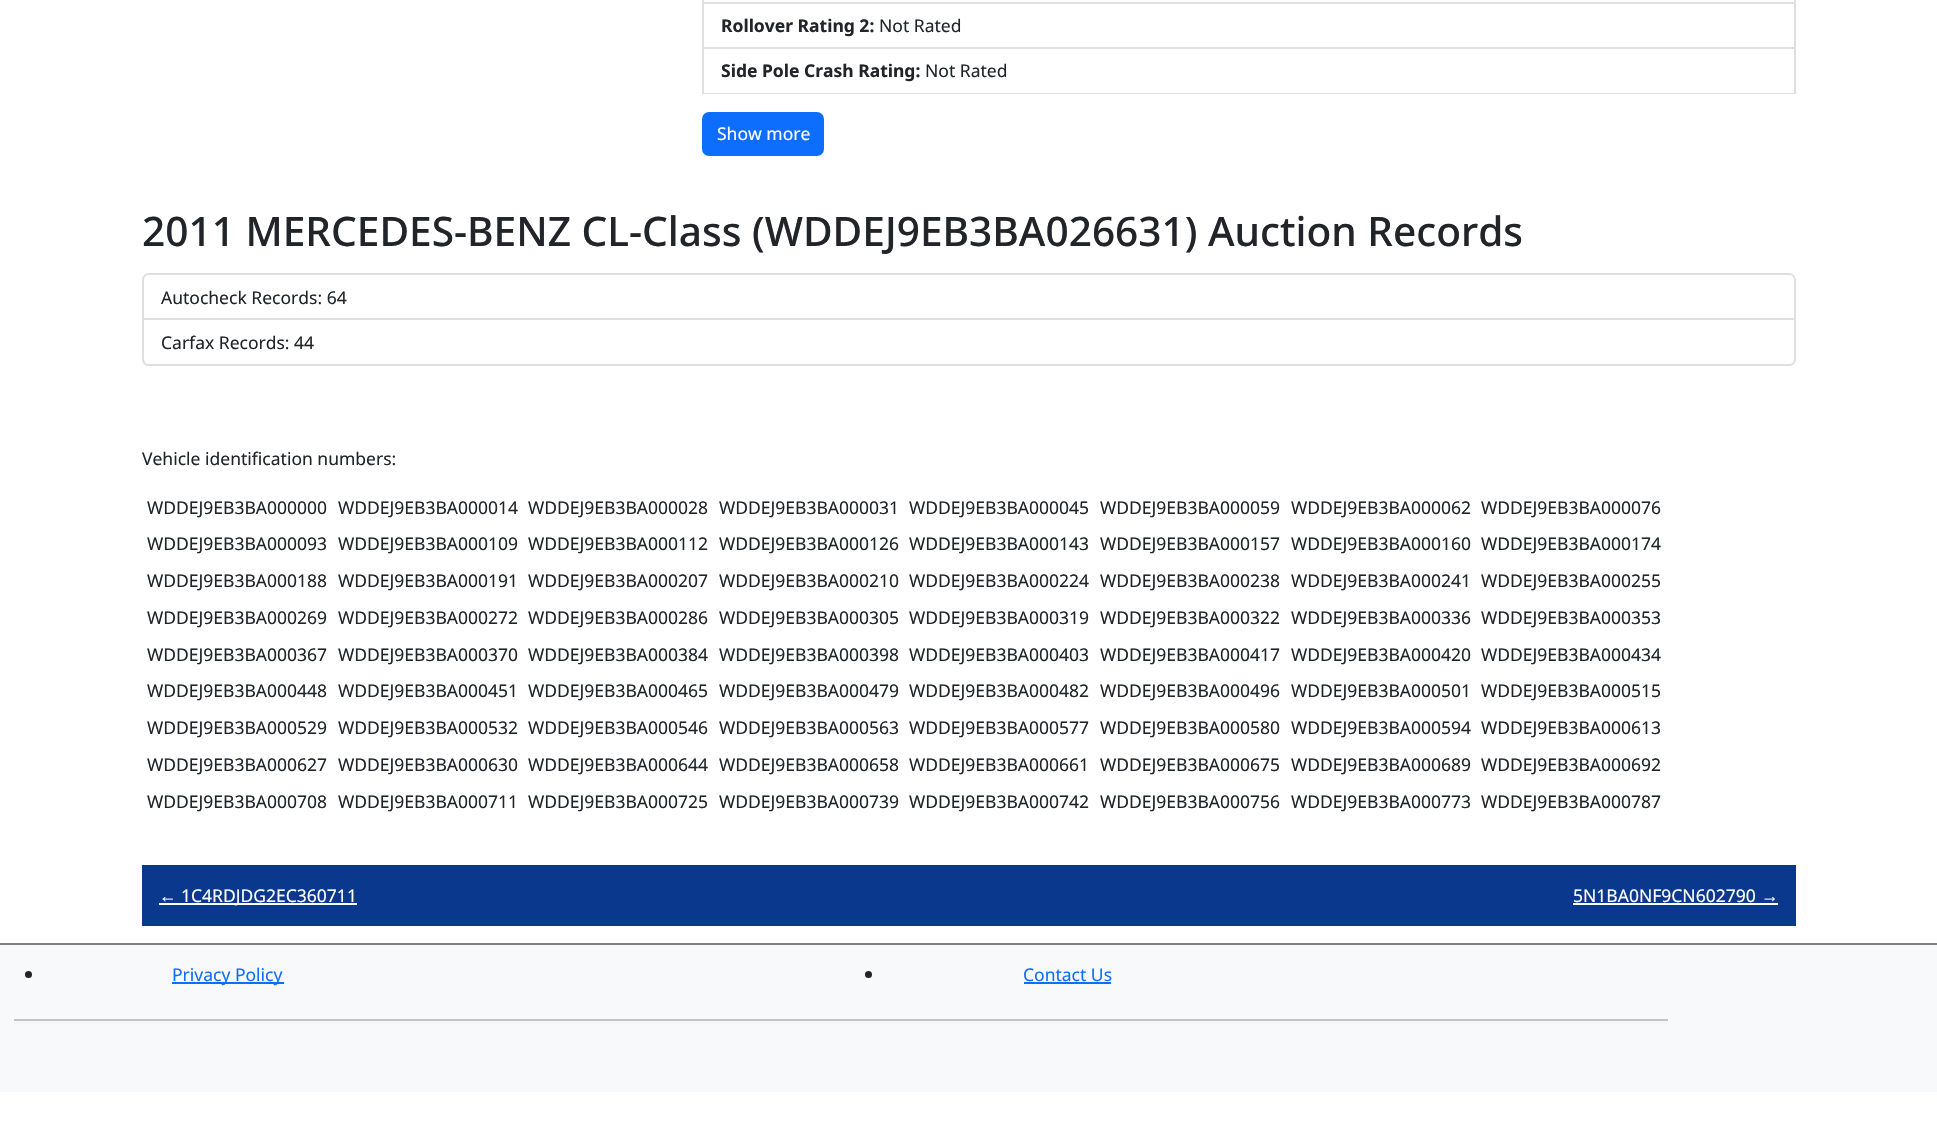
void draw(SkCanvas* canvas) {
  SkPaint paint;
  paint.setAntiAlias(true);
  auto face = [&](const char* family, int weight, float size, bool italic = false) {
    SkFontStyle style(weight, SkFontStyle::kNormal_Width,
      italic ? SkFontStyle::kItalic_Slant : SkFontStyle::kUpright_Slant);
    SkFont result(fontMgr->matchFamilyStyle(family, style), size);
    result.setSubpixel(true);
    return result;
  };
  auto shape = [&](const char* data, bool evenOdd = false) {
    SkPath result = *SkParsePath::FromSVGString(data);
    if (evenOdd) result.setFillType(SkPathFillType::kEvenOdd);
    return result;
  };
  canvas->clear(0xffffffff);
  paint.setColor(0xffdfdfdf);
  canvas->drawPath(shape("M1796-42V4L1794 2V-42Z"), paint);
  paint.setColor(0x1f000000);
  canvas->drawPath(shape("M1796 4H702L704 2H1794Z"), paint);
  canvas->drawPath(shape("M702 4V-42H704V2Z"), paint);
  paint.setColor(0xffdfdfdf);
  canvas->drawPath(shape("M1796 4V49L1794 47V4Z"), paint);
  paint.setColor(0x1f000000);
  canvas->drawPath(shape("M1796 49H702L704 47H1794Z"), paint);
  canvas->drawPath(shape("M702 49V4H704V47Z"), paint);
  paint.setColor(0xffdfdfdf);
  canvas->drawPath(shape("M1796 49V94L1794 93V49Z"), paint);
  paint.setColor(0x1f000000);
  canvas->drawPath(shape("M1796 94H702L704 93H1794Z"), paint);
  canvas->drawPath(shape("M702 94V49H704V93Z"), paint);
  paint.setColor(0xff0d6efd);
  canvas->drawRoundRect(SkRect::MakeXYWH(703, 113, 120, 42), 6, 6, paint);
  paint.setStroke(true);
  paint.setStrokeWidth(2);
  canvas->drawRoundRect(SkRect::MakeXYWH(703, 113, 120, 42), 6, 6, paint);
  paint.setColor(0xffdfdfdf);
  canvas->drawPath(shape("M149 274H1789C1792.5 274 1795 276.5 1795 280V319H143V280C143 276.5 145.5 274 149 274Z"), paint);
  paint.setStroke(false);
  canvas->drawPath(shape("M142 320H1796V359C1796 363 1793 366 1789 366H148C145 366 142 363 142 359ZM144 320H1794V359C1794 362 1792 364 1789 364H148C146 364 144 362 144 359Z", true), paint);
  {
    const struct { float x, y, w, h; SkColor color; } items[] = {
      {142, 865, 1654, 61, 0xff09388c},
      {159, 903, 198, 2, 0xffffffff},
      {1573, 903, 205, 2, 0xffffffff},
      {0, 945, 1937, 147, 0xfff8f9fa},
      {0, 943, 1937, 2, 0xff808080},
    };
    for (auto [x, y, w, h, color] : items) {
      paint.setColor(color);
      canvas->drawRect(SkRect::MakeXYWH(x, y, w, h), paint);
    }
  }
  paint.setColor(0xff212529);
  canvas->drawCircle(28.5f, 974.5f, 3.5f, paint);
  paint.setColor(0xff0d6efd);
  canvas->drawRect(SkRect::MakeXYWH(172, 982, 112, 2), paint);
  paint.setColor(0xff212529);
  canvas->drawCircle(868.5f, 974.5f, 3.5f, paint);
  {
    const struct { float x, y, w, h; SkColor color; } items[] = {
      {1024, 982, 87, 2, 0xff0d6efd},
      {14, 1021, 1654, 3, 0xfff6f6f7},
      {14, 1019, 1654, 2, 0xffc2c4c6},
    };
    for (auto [x, y, w, h, color] : items) {
      paint.setColor(color);
      canvas->drawRect(SkRect::MakeXYWH(x, y, w, h), paint);
    }
  }
  auto f0 = face("Noto Sans", 700, 17.5f);
  paint.setColor(0xff212529);
  canvas->drawString("Rollover Rating 2:", 721, 32, f0, paint);
  auto f1 = face("Noto Sans", 400, 17.5f);
  canvas->drawString("Not Rated", 879, 32, f1, paint);
  canvas->drawString("Side Pole Crash Rating:", 721, 77, f0, paint);
  canvas->drawString("Not Rated", 925, 77, f1, paint);
  paint.setColor(0xffffffff);
  canvas->drawString("Show more", 717, 140, f1, paint);
  auto f2 = face("Noto Sans", 500, 40.6f);
  paint.setColor(0xff212529);
  canvas->drawString("2011 MERCEDES-BENZ CL-Class (WDDEJ9EB3BA026631) Auction Records", 142, 246, f2, paint);
  {
    const struct { const char* s; float x, y; } items[] = {
      {"Autocheck Records: 64", 161, 304},
      {"Carfax Records: 44", 161, 349},
      {"Vehicle identification numbers:", 142, 465},
      {"WDDEJ9EB3BA000000", 147, 514},
      {"WDDEJ9EB3BA000014", 338, 514},
      {"WDDEJ9EB3BA000028", 528, 514},
      {"WDDEJ9EB3BA000031", 719, 514},
      {"WDDEJ9EB3BA000045", 909, 514},
      {"WDDEJ9EB3BA000059", 1100, 514},
      {"WDDEJ9EB3BA000062", 1291, 514},
      {"WDDEJ9EB3BA000076", 1481, 514},
      {"WDDEJ9EB3BA000093", 147, 550},
      {"WDDEJ9EB3BA000109", 338, 550},
      {"WDDEJ9EB3BA000112", 528, 550},
      {"WDDEJ9EB3BA000126", 719, 550},
      {"WDDEJ9EB3BA000143", 909, 550},
      {"WDDEJ9EB3BA000157", 1100, 550},
      {"WDDEJ9EB3BA000160", 1291, 550},
      {"WDDEJ9EB3BA000174", 1481, 550},
      {"WDDEJ9EB3BA000188", 147, 587},
      {"WDDEJ9EB3BA000191", 338, 587},
      {"WDDEJ9EB3BA000207", 528, 587},
      {"WDDEJ9EB3BA000210", 719, 587},
      {"WDDEJ9EB3BA000224", 909, 587},
      {"WDDEJ9EB3BA000238", 1100, 587},
      {"WDDEJ9EB3BA000241", 1291, 587},
      {"WDDEJ9EB3BA000255", 1481, 587},
      {"WDDEJ9EB3BA000269", 147, 624},
      {"WDDEJ9EB3BA000272", 338, 624},
      {"WDDEJ9EB3BA000286", 528, 624},
      {"WDDEJ9EB3BA000305", 719, 624},
      {"WDDEJ9EB3BA000319", 909, 624},
      {"WDDEJ9EB3BA000322", 1100, 624},
      {"WDDEJ9EB3BA000336", 1291, 624},
      {"WDDEJ9EB3BA000353", 1481, 624},
      {"WDDEJ9EB3BA000367", 147, 661},
      {"WDDEJ9EB3BA000370", 338, 661},
      {"WDDEJ9EB3BA000384", 528, 661},
      {"WDDEJ9EB3BA000398", 719, 661},
      {"WDDEJ9EB3BA000403", 909, 661},
      {"WDDEJ9EB3BA000417", 1100, 661},
      {"WDDEJ9EB3BA000420", 1291, 661},
      {"WDDEJ9EB3BA000434", 1481, 661},
      {"WDDEJ9EB3BA000448", 147, 697},
      {"WDDEJ9EB3BA000451", 338, 697},
      {"WDDEJ9EB3BA000465", 528, 697},
      {"WDDEJ9EB3BA000479", 719, 697},
      {"WDDEJ9EB3BA000482", 909, 697},
      {"WDDEJ9EB3BA000496", 1100, 697},
      {"WDDEJ9EB3BA000501", 1291, 697},
      {"WDDEJ9EB3BA000515", 1481, 697},
      {"WDDEJ9EB3BA000529", 147, 734},
      {"WDDEJ9EB3BA000532", 338, 734},
      {"WDDEJ9EB3BA000546", 528, 734},
      {"WDDEJ9EB3BA000563", 719, 734},
      {"WDDEJ9EB3BA000577", 909, 734},
      {"WDDEJ9EB3BA000580", 1100, 734},
      {"WDDEJ9EB3BA000594", 1291, 734},
      {"WDDEJ9EB3BA000613", 1481, 734},
      {"WDDEJ9EB3BA000627", 147, 771},
      {"WDDEJ9EB3BA000630", 338, 771},
      {"WDDEJ9EB3BA000644", 528, 771},
      {"WDDEJ9EB3BA000658", 719, 771},
      {"WDDEJ9EB3BA000661", 909, 771},
      {"WDDEJ9EB3BA000675", 1100, 771},
      {"WDDEJ9EB3BA000689", 1291, 771},
      {"WDDEJ9EB3BA000692", 1481, 771},
      {"WDDEJ9EB3BA000708", 147, 808},
      {"WDDEJ9EB3BA000711", 338, 808},
      {"WDDEJ9EB3BA000725", 528, 808},
      {"WDDEJ9EB3BA000739", 719, 808},
      {"WDDEJ9EB3BA000742", 909, 808},
      {"WDDEJ9EB3BA000756", 1100, 808},
      {"WDDEJ9EB3BA000773", 1291, 808},
      {"WDDEJ9EB3BA000787", 1481, 808},
    };
    for (auto [s, x, y] : items) {
      canvas->drawString(s, x, y, f1, paint);
    }
  }
  auto f3 = face("Liberation Sans", 400, 17.5f);
  paint.setColor(0xffffffff);
  canvas->drawString("←", 159, 902, f3, paint);
  canvas->drawString("1C4RDJDG2EC360711", 181, 902, f1, paint);
  canvas->drawString("5N1BA0NF9CN602790", 1573, 902, f1, paint);
  canvas->drawString("→", 1761, 902, f3, paint);
  paint.setColor(0xff0d6efd);
  canvas->drawString("Privacy Policy", 172, 981, f1, paint);
  canvas->drawString("Contact Us", 1023, 981, f1, paint);
}
